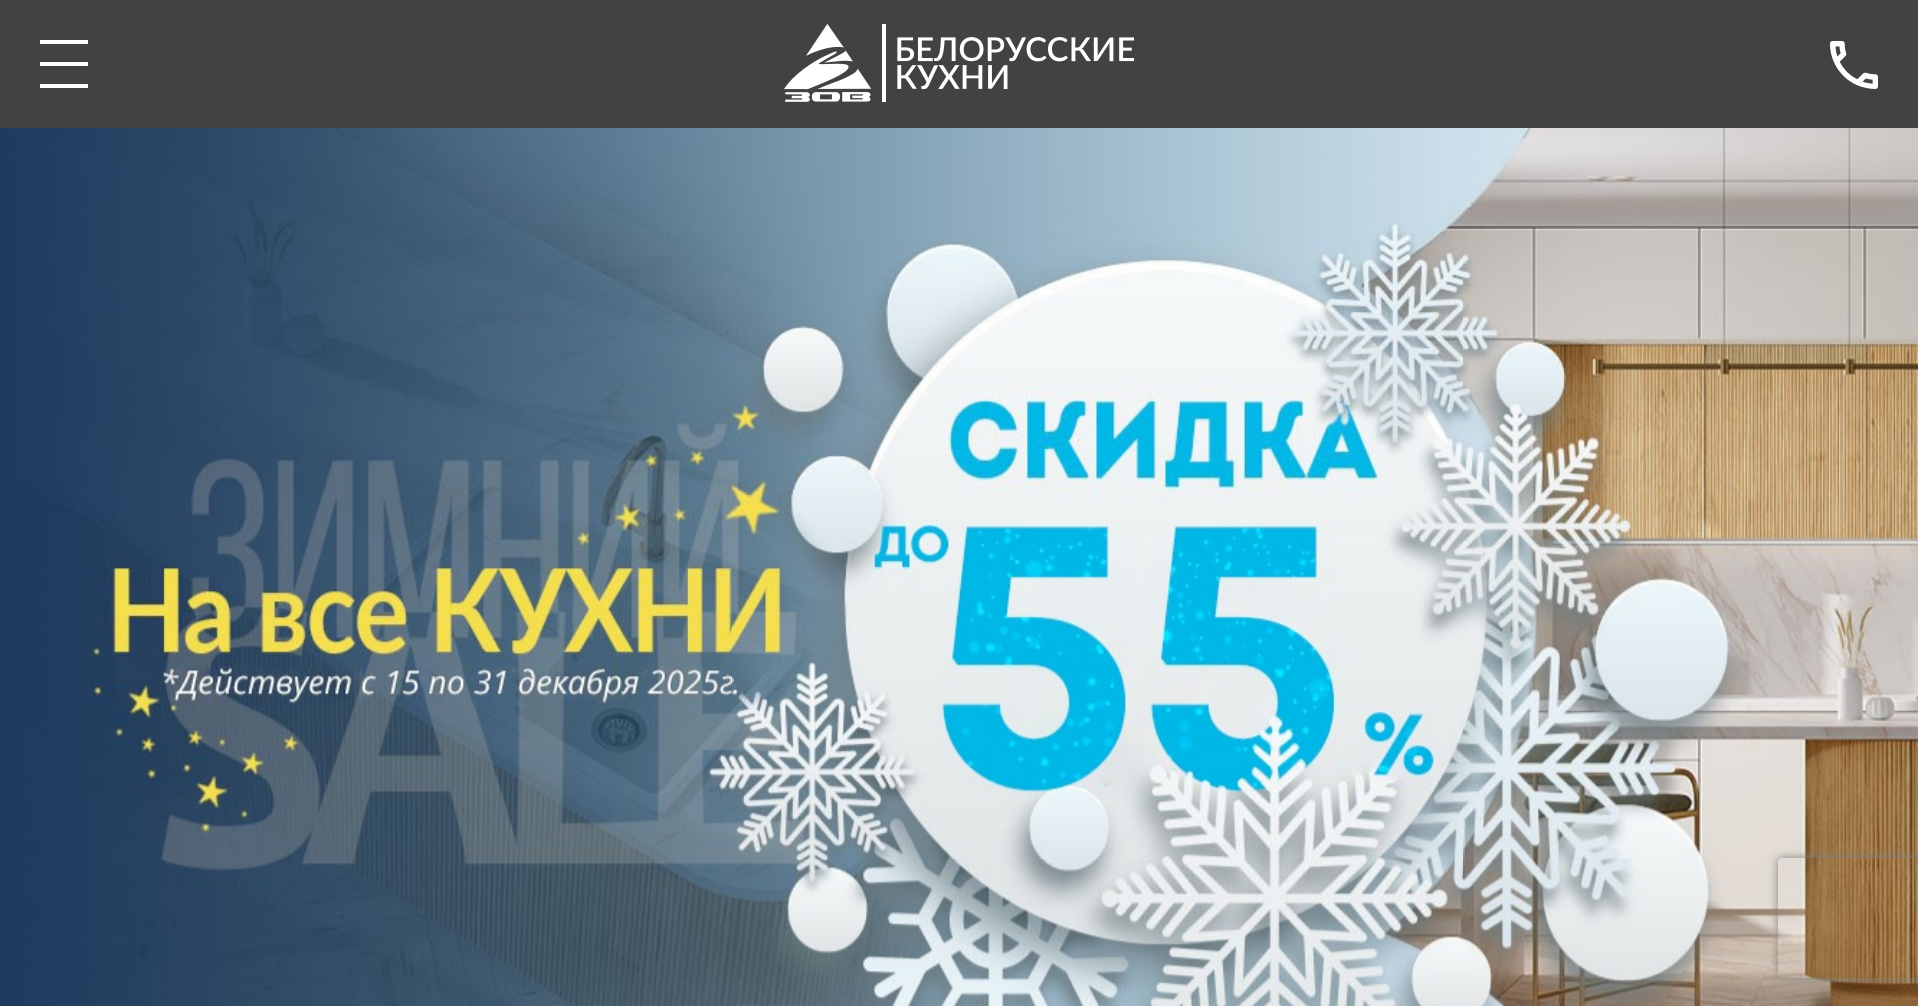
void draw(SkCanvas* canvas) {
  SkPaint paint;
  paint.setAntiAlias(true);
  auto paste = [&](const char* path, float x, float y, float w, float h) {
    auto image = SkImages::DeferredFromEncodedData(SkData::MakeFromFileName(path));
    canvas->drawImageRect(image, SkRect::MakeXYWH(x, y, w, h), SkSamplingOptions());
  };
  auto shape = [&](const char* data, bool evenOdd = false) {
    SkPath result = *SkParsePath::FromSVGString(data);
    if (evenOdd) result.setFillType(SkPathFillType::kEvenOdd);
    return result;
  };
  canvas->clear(0xff424242);
  paste("img/1.png", 40, 40, 48, 48);
  paste("img/2.png", 784, 24, 350, 78);
  paste("img/3.png", 1830, 41, 48, 48);
  paste("img/4.png", 0, 128, 1918, 878);
  canvas->save();
  canvas->clipPath(shape("M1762 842H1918V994H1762ZM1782 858H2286C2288 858 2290 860 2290 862V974C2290 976 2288 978 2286 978H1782C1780 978 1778 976 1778 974V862C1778 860 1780 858 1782 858Z", true), true);
  paint.setColor(0xff808080);
  paint.setMaskFilter(SkMaskFilter::MakeBlur(kNormal_SkBlurStyle, 5));
  canvas->drawRoundRect(SkRect::MakeXYWH(1778, 858, 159, 120), 4, 4, paint);
  paint.setMaskFilter(nullptr);
  canvas->restore();
}
